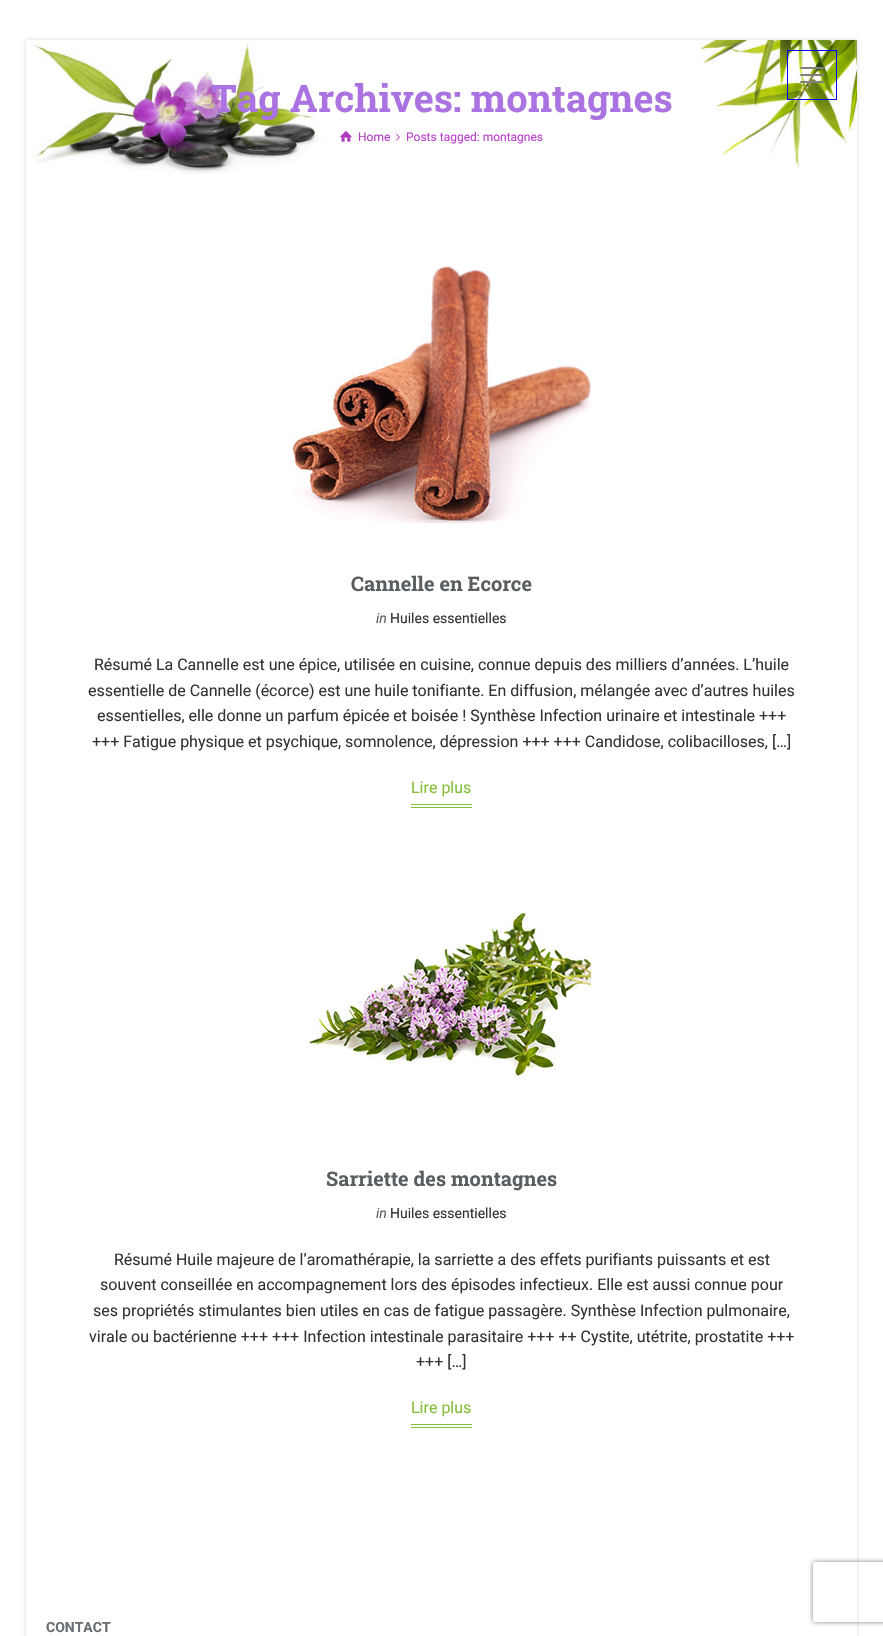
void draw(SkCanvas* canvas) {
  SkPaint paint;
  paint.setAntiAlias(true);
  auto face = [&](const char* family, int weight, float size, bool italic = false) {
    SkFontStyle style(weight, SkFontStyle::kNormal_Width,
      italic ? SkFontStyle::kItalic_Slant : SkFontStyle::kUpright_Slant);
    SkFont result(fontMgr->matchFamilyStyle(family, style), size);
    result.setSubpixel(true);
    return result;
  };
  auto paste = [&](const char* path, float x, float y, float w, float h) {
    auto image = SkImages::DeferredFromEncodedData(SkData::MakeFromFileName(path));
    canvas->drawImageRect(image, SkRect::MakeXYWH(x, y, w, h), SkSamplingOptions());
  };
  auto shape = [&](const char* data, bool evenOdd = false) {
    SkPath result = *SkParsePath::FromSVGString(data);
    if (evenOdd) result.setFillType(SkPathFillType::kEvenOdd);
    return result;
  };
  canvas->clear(0xffffffff);
  canvas->save();
  canvas->clipPath(shape("M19 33H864V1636H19ZM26 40H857V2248H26Z", true), true);
  paint.setColor(0x26000000);
  paint.setMaskFilter(SkMaskFilter::MakeBlur(kNormal_SkBlurStyle, 2));
  canvas->drawRect(SkRect::MakeXYWH(26, 40, 831, 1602), paint);
  paint.setMaskFilter(nullptr);
  canvas->restore();
  paste("img/1.png", 32, 40, 825, 134);
  paint.setStroke(true);
  paint.setStrokeWidth(1);
  paint.setColor(0xff0000ee);
  canvas->drawRect(SkRect::MakeXYWH(787.5f, 50.5f, 49, 49), paint);
  paint.setStroke(false);
  paint.setColor(0xff808080);
  canvas->drawRoundRect(SkRect::MakeXYWH(800, 67, 24, 2), 1, 1, paint);
  canvas->drawRoundRect(SkRect::MakeXYWH(800, 74, 24, 2), 1, 1, paint);
  canvas->drawRoundRect(SkRect::MakeXYWH(800, 81, 24, 2), 1, 1, paint);
  paste("img/2.png", 340, 131, 12, 11);
  paste("img/3.png", 396, 133, 4, 8);
  paste("img/4.png", 291, 260, 300, 264);
  paint.setColor(0xff84be38);
  canvas->drawRect(SkRect::MakeXYWH(411, 804, 61, 1), paint);
  canvas->drawRect(SkRect::MakeXYWH(411, 807, 61, 1), paint);
  paste("img/5.png", 307, 910, 284, 168);
  canvas->drawRect(SkRect::MakeXYWH(411, 1424, 61, 1), paint);
  canvas->drawRect(SkRect::MakeXYWH(411, 1427, 61, 1), paint);
  canvas->save();
  canvas->clipPath(shape("M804 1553H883V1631H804ZM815 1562H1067C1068 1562 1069 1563 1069 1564V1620C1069 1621 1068 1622 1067 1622H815C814 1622 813 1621 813 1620V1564C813 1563 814 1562 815 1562Z", true), true);
  paint.setColor(0xff808080);
  paint.setMaskFilter(SkMaskFilter::MakeBlur(kNormal_SkBlurStyle, 2.5f));
  canvas->drawRoundRect(SkRect::MakeXYWH(813, 1562, 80, 60), 2, 2, paint);
  paint.setMaskFilter(nullptr);
  canvas->restore();
  auto f0 = face("Roboto Slab", 700, 38);
  paint.setColor(0xffab73e2);
  canvas->drawString("Tag Archives: montagnes", 211, 112, f0, paint);
  auto f1 = face("Roboto", 400, 12);
  paint.setColor(0xffb03bc0);
  canvas->drawString("Home", 358, 141, f1, paint);
  paint.setColor(0xffbb3ecc);
  canvas->drawString("Posts tagged: montagnes", 406, 141, f1, paint);
  auto f2 = face("Roboto Slab", 700, 20);
  paint.setColor(0xff585e61);
  canvas->drawString("Cannelle en Ecorce", 351, 591, f2, paint);
  auto f3 = face("Roboto", 400, 14, true);
  canvas->drawString("in", 376, 623, f3, paint);
  auto f4 = face("Roboto", 400, 14);
  paint.setColor(0xff333333);
  canvas->drawString("Huiles essentielles", 390, 623, f4, paint);
  auto f5 = face("Roboto", 400, 16);
  {
    const struct { const char* s; float x, y; } items[] = {
      {"Résumé La Cannelle est une épice, utilisée en cuisine, connue depuis des milliers d’années. L’huile", 94, 670},
      {"essentielle de Cannelle (écorce) est une huile tonifiante. En diffusion, mélangée avec d’autres huiles", 88, 696},
      {"essentielles, elle donne un parfum épicée et boisée ! Synthèse Infection urinaire et intestinale +++", 97, 721},
      {"+++ Fatigue physique et psychique, somnolence, dépression +++ +++ Candidose, colibacilloses, […]", 92, 747},
    };
    for (auto [s, x, y] : items) {
      canvas->drawString(s, x, y, f5, paint);
    }
  }
  paint.setColor(0xff84be38);
  canvas->drawString("Lire plus", 411, 793, f5, paint);
  paint.setColor(0xff585e61);
  canvas->drawString("Sarriette des montagnes", 326, 1186, f2, paint);
  canvas->drawString("in", 376, 1218, f3, paint);
  paint.setColor(0xff333333);
  canvas->drawString("Huiles essentielles", 390, 1218, f4, paint);
  {
    const struct { const char* s; float x, y; } items[] = {
      {"Résumé Huile majeure de l’aromathérapie, la sarriette a des effets purifiants puissants et est", 114, 1265},
      {"souvent conseillée en accompagnement lors des épisodes infectieux. Elle est aussi connue pour", 100, 1290},
      {"ses propriétés stimulantes bien utiles en cas de fatigue passagère. Synthèse Infection pulmonaire,", 93, 1316},
      {"virale ou bactérienne +++ +++ Infection intestinale parasitaire +++ ++ Cystite, utétrite, prostatite +++", 89, 1342},
      {"+++ […]", 416, 1367},
    };
    for (auto [s, x, y] : items) {
      canvas->drawString(s, x, y, f5, paint);
    }
  }
  paint.setColor(0xff84be38);
  canvas->drawString("Lire plus", 411, 1413, f5, paint);
  auto f6 = face("Roboto", 700, 14);
  paint.setColor(0xff666d73);
  canvas->drawString("CONTACT", 46, 1632, f6, paint);
}
